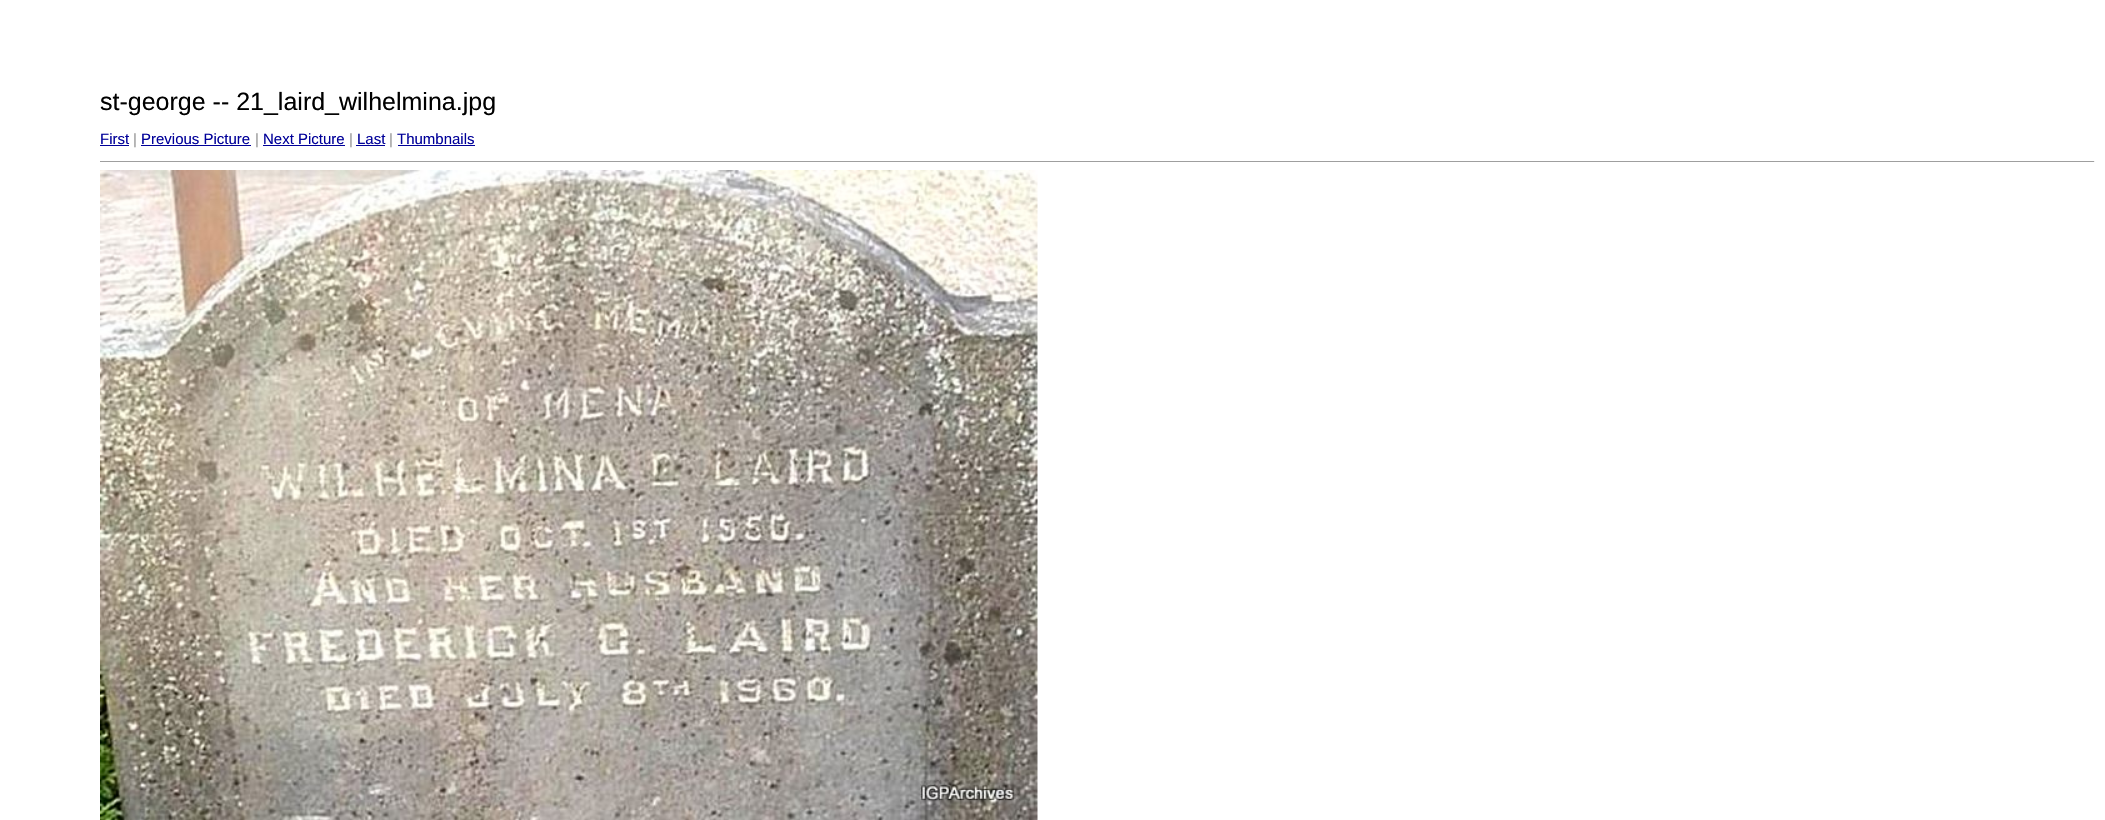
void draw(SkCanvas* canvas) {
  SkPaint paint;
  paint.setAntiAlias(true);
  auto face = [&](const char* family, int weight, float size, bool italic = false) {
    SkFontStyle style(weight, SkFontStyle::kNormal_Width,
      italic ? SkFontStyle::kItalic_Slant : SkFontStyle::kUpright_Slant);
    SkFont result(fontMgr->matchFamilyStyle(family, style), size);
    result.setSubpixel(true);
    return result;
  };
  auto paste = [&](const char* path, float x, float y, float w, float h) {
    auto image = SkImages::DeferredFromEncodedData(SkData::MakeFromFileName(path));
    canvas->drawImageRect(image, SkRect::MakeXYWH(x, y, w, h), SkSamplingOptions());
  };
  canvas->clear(0xffffffff);
  {
    const struct { float x, y, w, h; SkColor color; } items[] = {
      {100, 145, 29, 1, 0xff000099},
      {141, 145, 110, 1, 0xff000099},
      {263, 145, 82, 1, 0xff000099},
      {356, 145, 29, 1, 0xff000099},
      {398, 145, 77, 1, 0xff000099},
      {100, 161, 1995, 1, 0xff9f9f9f},
      {2094, 161, 1, 1, 0xffeeeeee},
    };
    for (auto [x, y, w, h, color] : items) {
      paint.setColor(color);
      canvas->drawRect(SkRect::MakeXYWH(x, y, w, h), paint);
    }
  }
  paste("img/1.png", 100, 170, 938, 650);
  auto f0 = face("Liberation Sans", 400, 25);
  paint.setColor(0xff000000);
  canvas->drawString("st-george -- 21_laird_wilhelmina.jpg", 100, 110, f0, paint);
  auto f1 = face("Liberation Sans", 400, 15);
  paint.setColor(0xff000099);
  canvas->drawString("First", 100, 144, f1, paint);
  paint.setColor(0xff979797);
  canvas->drawString("|", 133, 144, f1, paint);
  paint.setColor(0xff000099);
  canvas->drawString("Previous Picture", 141, 144, f1, paint);
  paint.setColor(0xff979797);
  canvas->drawString("|", 255, 144, f1, paint);
  paint.setColor(0xff000099);
  canvas->drawString("Next Picture", 263, 144, f1, paint);
  paint.setColor(0xff979797);
  canvas->drawString("|", 349, 144, f1, paint);
  paint.setColor(0xff000099);
  canvas->drawString("Last", 357, 144, f1, paint);
  paint.setColor(0xff979797);
  canvas->drawString("|", 389, 144, f1, paint);
  paint.setColor(0xff000099);
  canvas->drawString("Thumbnails", 397, 144, f1, paint);
}
